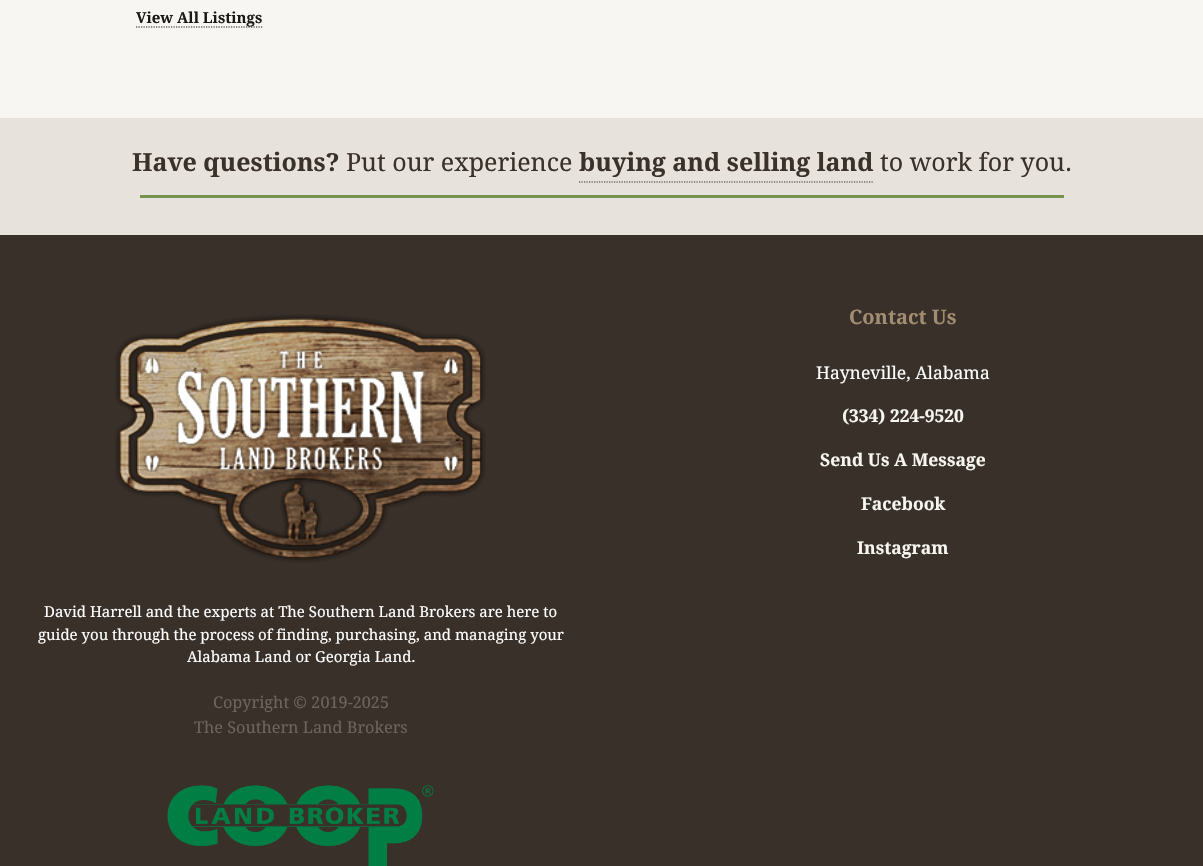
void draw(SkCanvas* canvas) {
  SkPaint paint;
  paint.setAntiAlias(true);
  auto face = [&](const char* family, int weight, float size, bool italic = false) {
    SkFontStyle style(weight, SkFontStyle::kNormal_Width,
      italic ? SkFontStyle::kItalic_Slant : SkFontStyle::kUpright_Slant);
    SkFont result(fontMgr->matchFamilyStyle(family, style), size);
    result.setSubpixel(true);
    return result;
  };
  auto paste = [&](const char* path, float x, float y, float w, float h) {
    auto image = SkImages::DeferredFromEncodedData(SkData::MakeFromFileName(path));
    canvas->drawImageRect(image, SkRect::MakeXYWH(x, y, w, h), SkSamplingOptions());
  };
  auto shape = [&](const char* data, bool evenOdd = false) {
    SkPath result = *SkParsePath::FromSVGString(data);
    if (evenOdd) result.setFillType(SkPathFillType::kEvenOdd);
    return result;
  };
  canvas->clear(0xfff8f6f2);
  paint.setStroke(true);
  paint.setStrokeWidth(1.2f);
  paint.setColor(0xff1c1815);
  paint.setPathEffect(SkDashPathEffect::Make({{1.25f, 1.25f}}, 0));
  canvas->drawPath(shape("M136 27H262.5"), paint);
  paint.setPathEffect(nullptr);
  paint.setStroke(false);
  paint.setColor(0xffe8e2dc);
  canvas->drawRect(SkRect::MakeXYWH(0, 118, 1203, 117), paint);
  paint.setStroke(true);
  paint.setColor(0xff39312a);
  paint.setPathEffect(SkDashPathEffect::Make({{1.25f, 1.25f}}, 0));
  canvas->drawPath(shape("M579 182H874"), paint);
  paint.setPathEffect(nullptr);
  paint.setStroke(false);
  paint.setColor(0xff75924f);
  canvas->drawRect(SkRect::MakeXYWH(140, 195, 924, 3), paint);
  paint.setColor(0xff39302a);
  canvas->drawRect(SkRect::MakeXYWH(0, 235, 1203, 631), paint);
  paste("img/1.png", 115, 314, 371, 249);
  paste("img/2.png", 167, 785, 267, 81);
  auto f0 = face("Droid Serif", 700, 15);
  paint.setColor(0xff1c1815);
  canvas->drawString("View All Listings", 136, 23, f0, paint);
  auto f1 = face("Droid Serif", 700, 25);
  paint.setColor(0xff39312a);
  canvas->drawString("Have questions?", 132, 171, f1, paint);
  auto f2 = face("Droid Serif", 400, 25);
  canvas->drawString("Put our experience", 346, 171, f2, paint);
  canvas->drawString("buying and selling land", 579, 171, f1, paint);
  canvas->drawString("to work for you.", 880, 171, f2, paint);
  auto f3 = face("Droid Serif", 700, 20);
  paint.setColor(0xffa38d72);
  canvas->drawString("Contact Us", 849, 324, f3, paint);
  auto f4 = face("Droid Serif", 400, 17.5f);
  paint.setColor(0xffffffff);
  canvas->drawString("Hayneville, Alabama", 816, 379, f4, paint);
  auto f5 = face("Droid Serif", 700, 17.5f);
  paint.setColor(0xfff8f6f1);
  {
    const struct { const char* s; float x, y; } items[] = {
      {"(334) 224-9520", 842, 422},
      {"Send Us A Message", 820, 466},
      {"Facebook", 861, 510},
      {"Instagram", 857, 554},
    };
    for (auto [s, x, y] : items) {
      canvas->drawString(s, x, y, f5, paint);
    }
  }
  auto f6 = face("Droid Serif", 400, 15);
  paint.setColor(0xffffffff);
  {
    const struct { const char* s; float x, y; } items[] = {
      {"David Harrell and the experts at The Southern Land Brokers are here to", 44, 617},
      {"guide you through the process of finding, purchasing, and managing your", 38, 640},
      {"Alabama Land or Georgia Land.", 187, 662},
    };
    for (auto [s, x, y] : items) {
      canvas->drawString(s, x, y, f6, paint);
    }
  }
  auto f7 = face("Droid Serif", 400, 16.25f);
  paint.setColor(0xff6b645f);
  canvas->drawString("Copyright © 2019-2025", 213, 708, f7, paint);
  canvas->drawString("The Southern Land Brokers", 194, 733, f7, paint);
}
